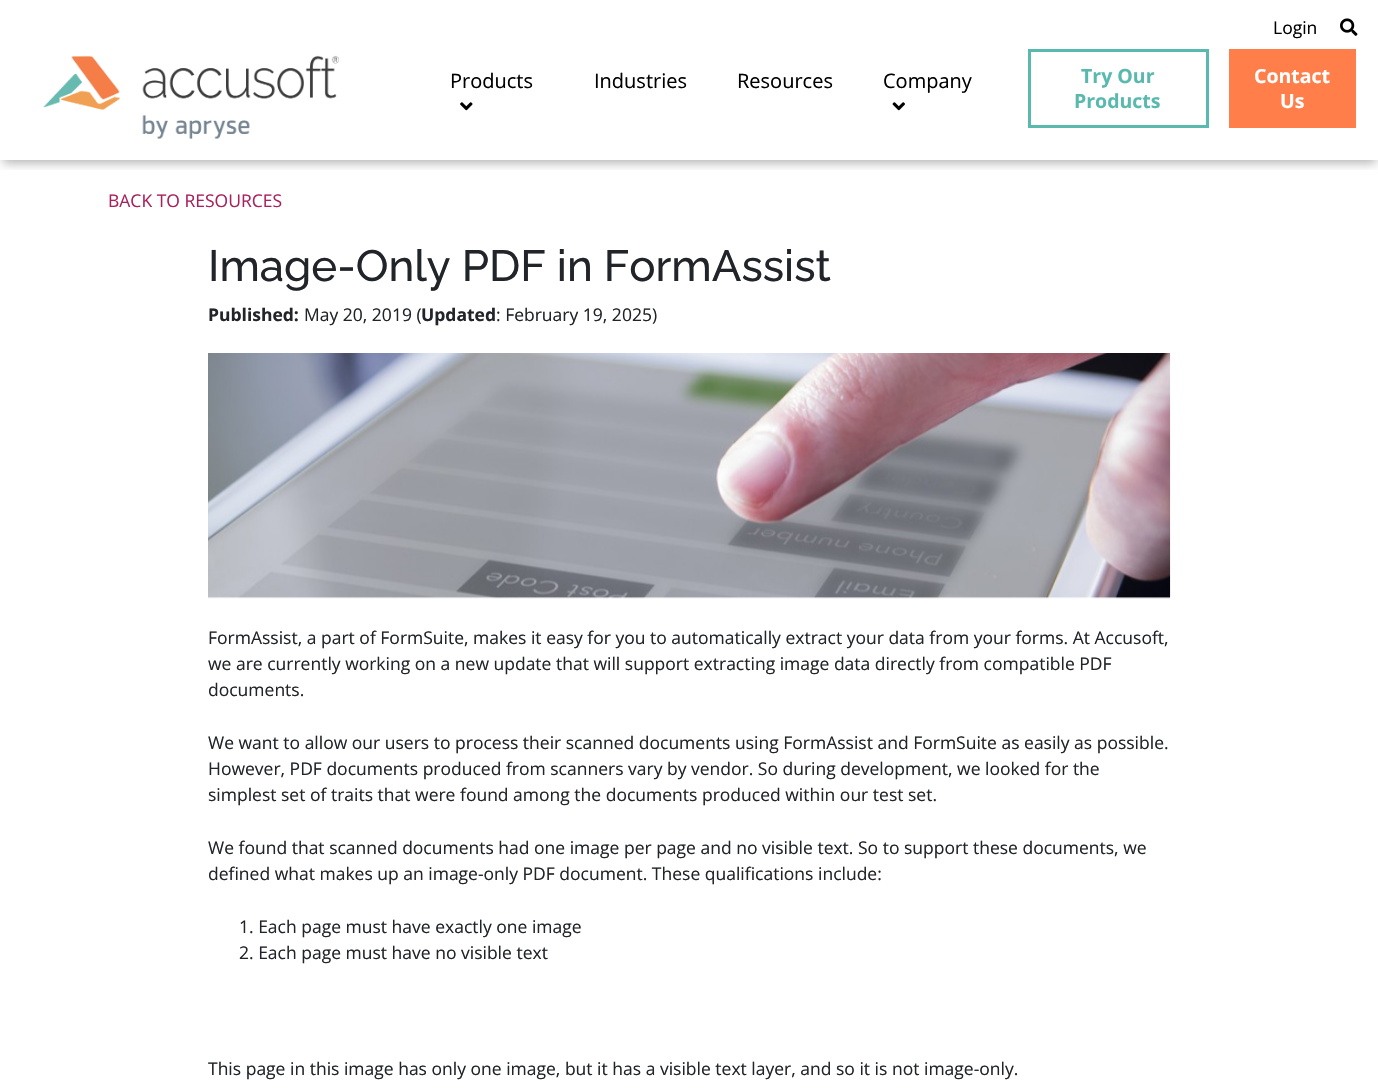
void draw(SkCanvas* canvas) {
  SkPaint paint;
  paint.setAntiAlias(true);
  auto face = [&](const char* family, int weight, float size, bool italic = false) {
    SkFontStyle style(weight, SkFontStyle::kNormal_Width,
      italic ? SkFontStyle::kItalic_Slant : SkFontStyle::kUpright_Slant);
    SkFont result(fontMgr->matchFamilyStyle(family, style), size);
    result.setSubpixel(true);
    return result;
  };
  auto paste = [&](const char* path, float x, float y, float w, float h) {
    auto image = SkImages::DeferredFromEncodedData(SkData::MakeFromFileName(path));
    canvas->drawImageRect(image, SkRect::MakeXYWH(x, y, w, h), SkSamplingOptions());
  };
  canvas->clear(0xffffffff);
  canvas->save();
  canvas->clipRect(SkRect::MakeXYWH(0, 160, 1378, 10));
  paint.setColor(0x4d000000);
  paint.setMaskFilter(SkMaskFilter::MakeBlur(kNormal_SkBlurStyle, 5));
  canvas->drawRect(SkRect::MakeXYWH(3, 8, 1373, 155), paint);
  paint.setMaskFilter(nullptr);
  canvas->restore();
  paste("img/1.png", 43, 55, 296, 84);
  paste("img/2.png", 1340, 18, 18, 18);
  paste("img/3.png", 460, 102, 13, 9);
  paste("img/4.png", 892, 102, 13, 9);
  paint.setStroke(true);
  paint.setStrokeWidth(3);
  paint.setColor(0xff5ab9ae);
  canvas->drawRect(SkRect::MakeXYWH(1029.5f, 50.5f, 178, 76), paint);
  paint.setStroke(false);
  paint.setColor(0xffff7e4a);
  canvas->drawRect(SkRect::MakeXYWH(1229, 49, 127, 79), paint);
  paste("img/5.png", 208, 353, 963, 246);
  auto f0 = face("Open Sans", 400, 17.5f);
  paint.setColor(0xff000000);
  canvas->drawString("Login", 1273, 34, f0, paint);
  auto f1 = face("Open Sans", 400, 20);
  {
    const struct { const char* s; float x, y; } items[] = {
      {"Products", 450, 88},
      {"Industries", 594, 88},
      {"Resources", 737, 88},
      {"Company", 883, 88},
    };
    for (auto [s, x, y] : items) {
      canvas->drawString(s, x, y, f1, paint);
    }
  }
  auto f2 = face("Open Sans", 700, 19.5f);
  paint.setColor(0xff5ab9ae);
  canvas->drawString("Try Our", 1081, 83, f2, paint);
  canvas->drawString("Products", 1074, 108, f2, paint);
  paint.setColor(0xffffffff);
  canvas->drawString("Contact", 1254, 83, f2, paint);
  canvas->drawString("Us", 1280, 108, f2, paint);
  paint.setColor(0xffa9215c);
  canvas->drawString("BACK TO RESOURCES", 108, 207, f0, paint);
  auto f3 = face("Raleway", 500, 43.75f);
  paint.setColor(0xff212529);
  canvas->drawString("Image-Only PDF in FormAssist", 208, 281, f3, paint);
  auto f4 = face("Open Sans", 700, 17.5f);
  canvas->drawString("Published:", 208, 321, f4, paint);
  canvas->drawString("May 20, 2019 (", 304, 321, f0, paint);
  canvas->drawString("Updated", 421, 321, f4, paint);
  {
    const struct { const char* s; float x, y; } items[] = {
      {": February 19, 2025)", 496, 321},
      {"FormAssist, a part of FormSuite, makes it easy for you to automatically extract your data from your forms. At Accusoft,", 208, 644},
      {"we are currently working on a new update that will support extracting image data directly from compatible PDF", 208, 670},
      {"documents.", 208, 696},
      {"We want to allow our users to process their scanned documents using FormAssist and FormSuite as easily as possible.", 208, 749},
      {"However, PDF documents produced from scanners vary by vendor. So during development, we looked for the", 208, 775},
      {"simplest set of traits that were found among the documents produced within our test set.", 208, 801},
      {"We found that scanned documents had one image per page and no visible text. So to support these documents, we", 208, 854},
      {"defined what makes up an image-only PDF document. These qualifications include:", 208, 880},
      {"1. Each page must have exactly one image", 239, 933},
      {"2. Each page must have no visible text", 239, 959},
      {"This page in this image has only one image, but it has a visible text layer, and so it is not image-only.", 208, 1075},
    };
    for (auto [s, x, y] : items) {
      canvas->drawString(s, x, y, f0, paint);
    }
  }
}
